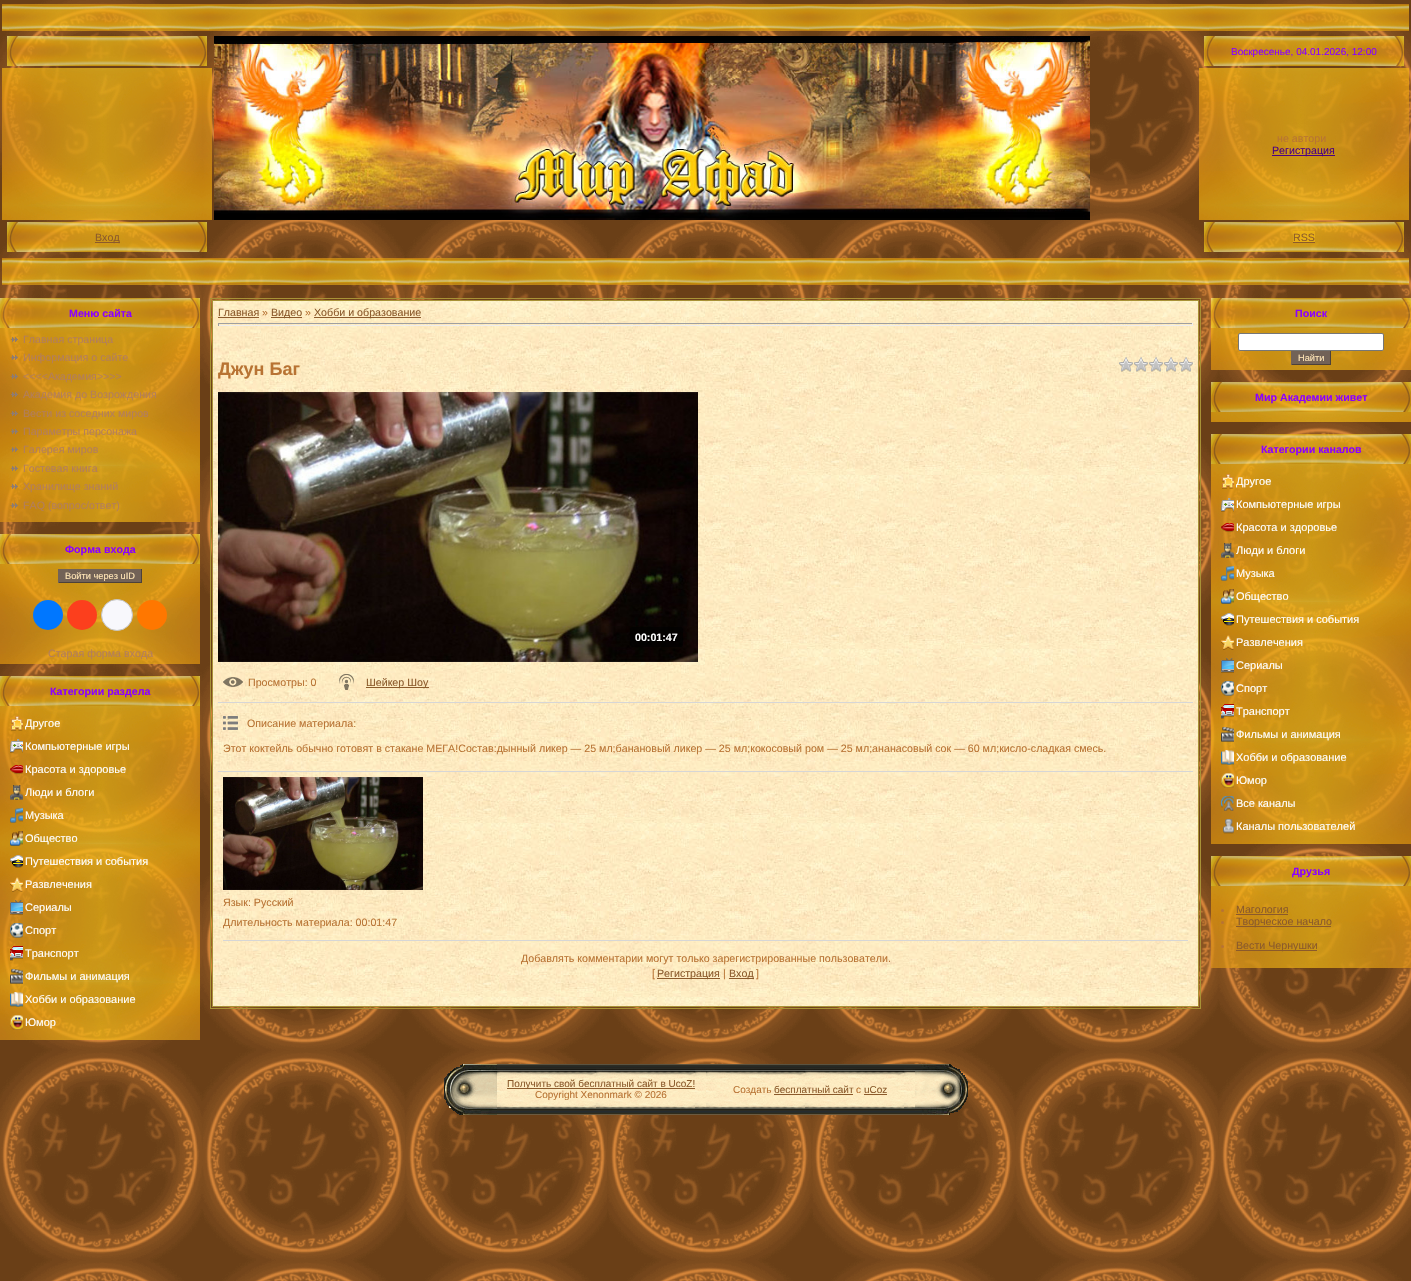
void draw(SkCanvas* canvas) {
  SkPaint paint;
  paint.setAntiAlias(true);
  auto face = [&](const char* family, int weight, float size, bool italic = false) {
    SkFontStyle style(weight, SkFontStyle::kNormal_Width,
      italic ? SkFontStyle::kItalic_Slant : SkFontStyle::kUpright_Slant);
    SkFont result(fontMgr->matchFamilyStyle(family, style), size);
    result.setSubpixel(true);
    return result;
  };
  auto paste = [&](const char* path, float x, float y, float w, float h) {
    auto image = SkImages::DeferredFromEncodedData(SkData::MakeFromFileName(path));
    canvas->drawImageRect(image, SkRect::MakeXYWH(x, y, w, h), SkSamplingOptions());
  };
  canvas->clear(0xffffffff);
  paste("img/1.png", 0, 0, 1411, 1281);
  paste("img/2.png", 2, 4, 1407, 27);
  paste("img/3.png", 7, 36, 200, 30);
  paste("img/4.png", 214, 36, 876, 184);
  paste("img/5.png", 1204, 36, 200, 30);
  paste("img/6.png", 2, 68, 210, 152);
  paste("img/7.png", 1199, 68, 210, 152);
  paint.setColor(0xff4b0082);
  canvas->drawRect(SkRect::MakeXYWH(1272, 155, 63, 1), paint);
  paste("img/8.png", 7, 222, 200, 30);
  paint.setColor(0xff8b5a2b);
  canvas->drawRect(SkRect::MakeXYWH(95, 242, 25, 1), paint);
  paste("img/9.png", 1204, 222, 200, 30);
  paste("img/10.png", 1293, 231, 22, 11);
  canvas->drawRect(SkRect::MakeXYWH(1293, 242, 22, 1), paint);
  paste("img/11.png", 2, 258, 1407, 27);
  paste("img/12.png", 0, 298, 200, 30);
  paste("img/13.png", 0, 328, 200, 194);
  paste("img/14.png", 11, 337, 7, 5);
  paste("img/15.png", 11, 355, 7, 5);
  paste("img/16.png", 11, 374, 7, 5);
  paste("img/17.png", 11, 392, 7, 5);
  paste("img/18.png", 11, 411, 7, 5);
  paste("img/19.png", 11, 429, 7, 5);
  paste("img/20.png", 11, 447, 7, 5);
  paste("img/21.png", 11, 466, 7, 5);
  paste("img/22.png", 11, 484, 7, 5);
  paste("img/23.png", 11, 503, 7, 5);
  paste("img/24.png", 0, 534, 200, 30);
  paste("img/25.png", 0, 564, 200, 100);
  {
    const struct { float x, y, w, h; SkColor color; } items[] = {
      {59, 569, 82, 13, 0xff726257},
      {141, 569, 1, 14, 0xff4c413a},
      {58, 582, 84, 1, 0xff4c413a},
      {58, 569, 1, 14, 0xff726257},
    };
    for (auto [x, y, w, h, color] : items) {
      paint.setColor(color);
      canvas->drawRect(SkRect::MakeXYWH(x, y, w, h), paint);
    }
  }
  paint.setColor(0xff0077ff);
  canvas->drawCircle(48, 615, 15, paint);
  paint.setColor(0xfffc3f1d);
  canvas->drawCircle(82, 615, 15, paint);
  paint.setColor(0xfff8f8fc);
  canvas->drawCircle(117, 615, 15.5f, paint);
  paint.setStroke(true);
  paint.setStrokeWidth(1);
  paint.setColor(0xffc4c4c4);
  canvas->drawCircle(117, 615, 15.5f, paint);
  paint.setStroke(false);
  paint.setColor(0xffff7700);
  canvas->drawCircle(152, 615, 15, paint);
  paste("img/26.png", 0, 676, 200, 30);
  paste("img/27.png", 0, 706, 200, 334);
  paste("img/28.png", 11, 716, 12, 15);
  paste("img/29.png", 10, 739, 13, 14);
  paste("img/30.png", 10, 765, 13, 9);
  paste("img/31.png", 10, 785, 13, 15);
  paste("img/32.png", 10, 808, 13, 15);
  paste("img/33.png", 10, 831, 13, 15);
  paste("img/34.png", 10, 855, 13, 13);
  paste("img/35.png", 10, 877, 13, 15);
  paste("img/36.png", 10, 900, 13, 15);
  paste("img/37.png", 10, 923, 13, 15);
  paste("img/38.png", 10, 946, 13, 15);
  paste("img/39.png", 10, 969, 13, 15);
  paste("img/40.png", 10, 992, 13, 15);
  paste("img/41.png", 10, 1015, 13, 15);
  paint.setStroke(true);
  paint.setColor(0xffa89236);
  canvas->drawRect(SkRect::MakeXYWH(210.5f, 298.5f, 990, 710), paint);
  canvas->drawRect(SkRect::MakeXYWH(212.5f, 300.5f, 986, 706), paint);
  paste("img/42.png", 213, 301, 985, 705);
  paint.setStroke(false);
  {
    const struct { float x, y, w, h; SkColor color; } items[] = {
      {218, 317, 41, 1, 0xff8b5a2b},
      {271, 317, 31, 1, 0xff8b5a2b},
      {314, 317, 107, 1, 0xff8b5a2b},
      {218, 323, 975, 1, 0xff9f9f9f},
      {1192, 323, 1, 3, 0xffeeeeee},
      {218, 325, 975, 1, 0xffeeeeee},
      {218, 323, 1, 3, 0xff9f9f9f},
    };
    for (auto [x, y, w, h, color] : items) {
      paint.setColor(color);
      canvas->drawRect(SkRect::MakeXYWH(x, y, w, h), paint);
    }
  }
  paste("img/43.png", 1119, 357, 74, 15);
  paste("img/44.png", 218, 392, 480, 270);
  paint.setColor(0xa1000000);
  canvas->drawRoundRect(SkRect::MakeXYWH(630, 627, 53, 20), 3, 3, paint);
  paste("img/45.png", 223, 677, 20, 10);
  paste("img/46.png", 339, 674, 15, 16);
  paint.setColor(0xff8b5a2b);
  canvas->drawRect(SkRect::MakeXYWH(366, 687, 63, 1), paint);
  paint.setColor(0xffd6d6d6);
  canvas->drawRect(SkRect::MakeXYWH(218, 702, 975, 1), paint);
  paste("img/47.png", 223, 716, 15, 14);
  canvas->drawRect(SkRect::MakeXYWH(218, 771, 975, 1), paint);
  paste("img/48.png", 223, 777, 200, 113);
  {
    const struct { float x, y, w, h; SkColor color; } items[] = {
      {223, 940, 965, 1, 0xffd6d6d6},
      {657, 978, 63, 1, 0xff8b5a2b},
      {729, 978, 25, 1, 0xff8b5a2b},
    };
    for (auto [x, y, w, h, color] : items) {
      paint.setColor(color);
      canvas->drawRect(SkRect::MakeXYWH(x, y, w, h), paint);
    }
  }
  paste("img/49.png", 1211, 298, 200, 30);
  paste("img/50.png", 1211, 328, 200, 42);
  paint.setColor(0xffffffff);
  canvas->drawRoundRect(SkRect::MakeXYWH(1238.5f, 333.5f, 145, 17), 1.5f, 1.5f, paint);
  paint.setStroke(true);
  paint.setColor(0xff767676);
  canvas->drawRoundRect(SkRect::MakeXYWH(1238.5f, 333.5f, 145, 17), 1.5f, 1.5f, paint);
  paint.setStroke(false);
  {
    const struct { float x, y, w, h; SkColor color; } items[] = {
      {1292, 351, 38, 13, 0xff726257},
      {1330, 351, 1, 14, 0xff4c413a},
      {1291, 364, 40, 1, 0xff4c413a},
      {1291, 351, 1, 14, 0xff726257},
    };
    for (auto [x, y, w, h, color] : items) {
      paint.setColor(color);
      canvas->drawRect(SkRect::MakeXYWH(x, y, w, h), paint);
    }
  }
  paste("img/51.png", 1211, 382, 200, 30);
  paste("img/52.png", 1211, 412, 200, 10);
  paste("img/53.png", 1211, 434, 200, 30);
  paste("img/54.png", 1211, 464, 200, 380);
  paste("img/55.png", 1222, 474, 12, 15);
  paste("img/56.png", 1221, 498, 13, 14);
  paste("img/57.png", 1221, 523, 13, 9);
  paste("img/58.png", 1221, 543, 13, 15);
  paste("img/59.png", 1221, 566, 13, 15);
  paste("img/60.png", 1221, 589, 13, 15);
  paste("img/61.png", 1221, 613, 13, 13);
  paste("img/62.png", 1221, 635, 13, 15);
  paste("img/63.png", 1221, 658, 13, 15);
  paste("img/64.png", 1221, 681, 13, 15);
  paste("img/65.png", 1221, 704, 13, 15);
  paste("img/66.png", 1221, 727, 13, 15);
  paste("img/67.png", 1221, 750, 13, 15);
  paste("img/68.png", 1221, 773, 13, 15);
  paste("img/69.png", 1221, 796, 13, 15);
  paste("img/70.png", 1223, 819, 11, 15);
  paste("img/71.png", 1211, 856, 200, 30);
  paste("img/72.png", 1211, 886, 200, 82);
  paint.setColor(0xffb87333);
  canvas->drawCircle(1222.5f, 910.5f, 1.5f, paint);
  paint.setColor(0xff8b5a2b);
  canvas->drawRect(SkRect::MakeXYWH(1236, 914, 52, 1), paint);
  paint.setColor(0xffb87333);
  canvas->drawCircle(1222.5f, 922.5f, 1.5f, paint);
  paint.setColor(0xff8b5a2b);
  canvas->drawRect(SkRect::MakeXYWH(1236, 926, 95, 1), paint);
  paint.setColor(0xffb87333);
  canvas->drawCircle(1222.5f, 946.5f, 1.5f, paint);
  paint.setColor(0xff8b5a2b);
  canvas->drawRect(SkRect::MakeXYWH(1236, 950, 81, 1), paint);
  paste("img/73.png", 444, 1064, 53, 51);
  paste("img/74.png", 497, 1064, 209, 51);
  canvas->drawRect(SkRect::MakeXYWH(507, 1088, 188, 1), paint);
  paste("img/74.png", 706, 1064, 209, 51);
  canvas->drawRect(SkRect::MakeXYWH(774, 1094, 79, 1), paint);
  canvas->drawRect(SkRect::MakeXYWH(864, 1094, 23, 1), paint);
  paste("img/75.png", 915, 1064, 53, 51);
  auto f0 = face("Liberation Sans", 400, 10);
  paint.setColor(0xff8b00ff);
  canvas->drawString("Воскресенье, 04.01.2026, 12:00", 1231, 55, f0, paint);
  auto f1 = face("Liberation Sans", 400, 10.67f);
  paint.setColor(0xffb87333);
  canvas->drawString("не автори", 1277, 142, f1, paint);
  paint.setColor(0xff4b0082);
  canvas->drawString("Регистрация", 1272, 154, f1, paint);
  paint.setColor(0xff8b5a2b);
  canvas->drawString("Вход", 95, 241, f1, paint);
  canvas->drawString("RSS", 1293, 241, f1, paint);
  auto f2 = face("Liberation Sans", 700, 10.67f);
  paint.setColor(0xff8b00ff);
  canvas->drawString("Меню сайта", 69, 317, f2, paint);
  paint.setColor(0xffb27d5d);
  {
    const struct { const char* s; float x, y; } items[] = {
      {"Главная страница", 23, 343},
      {"Информация о сайте", 23, 361},
      {"<<<<Академия>>>>", 23, 380},
      {"Академия до Возрождения", 23, 398},
      {"Вести из соседних миров", 23, 417},
      {"Параметры персонажа", 23, 435},
      {"Галерея миров", 23, 453},
      {"Гостевая книга", 23, 472},
      {"Хранилище знаний", 23, 490},
      {"FAQ (вопрос/ответ)", 23, 509},
    };
    for (auto [s, x, y] : items) {
      canvas->drawString(s, x, y, f1, paint);
    }
  }
  paint.setColor(0xff8b00ff);
  canvas->drawString("Форма входа", 65, 553, f2, paint);
  auto f3 = face("Liberation Sans", 400, 9.25f);
  paint.setColor(0xffffe5b6);
  canvas->drawString("Войти через uID", 65, 579, f3, paint);
  paint.setColor(0xffb27d5d);
  canvas->drawString("Старая форма входа", 48, 657, f1, paint);
  paint.setColor(0xff8b00ff);
  canvas->drawString("Категории раздела", 50, 695, f2, paint);
  auto f4 = face("Liberation Sans", 400, 11);
  paint.setColor(0xffffffff);
  {
    const struct { const char* s; float x, y; } items[] = {
      {"Другое", 25, 727},
      {"Компьютерные игры", 25, 750},
      {"Красота и здоровье", 25, 773},
      {"Люди и блоги", 25, 796},
      {"Музыка", 25, 819},
      {"Общество", 25, 842},
      {"Путешествия и события", 25, 865},
      {"Развлечения", 25, 888},
      {"Сериалы", 25, 911},
      {"Спорт", 25, 934},
      {"Транспорт", 25, 957},
      {"Фильмы и анимация", 25, 980},
      {"Хобби и образование", 25, 1003},
      {"Юмор", 25, 1026},
    };
    for (auto [s, x, y] : items) {
      canvas->drawString(s, x, y, f4, paint);
    }
  }
  paint.setColor(0xff8b5a2b);
  canvas->drawString("Главная", 218, 316, f1, paint);
  paint.setColor(0xffb87333);
  canvas->drawString("»", 262, 316, f1, paint);
  paint.setColor(0xff8b5a2b);
  canvas->drawString("Видео", 271, 316, f1, paint);
  paint.setColor(0xffb87333);
  canvas->drawString("»", 305, 316, f1, paint);
  paint.setColor(0xff8b5a2b);
  canvas->drawString("Хобби и образование", 314, 316, f1, paint);
  auto f5 = face("Liberation Sans", 700, 18);
  paint.setColor(0xffb87333);
  canvas->drawString("Джун Баг", 218, 375, f5, paint);
  paint.setColor(0xffffffff);
  canvas->drawString("00:01:47", 635, 641, f2, paint);
  paint.setColor(0xffb87333);
  canvas->drawString("Просмотры: 0", 248, 686, f1, paint);
  paint.setColor(0xff8b5a2b);
  canvas->drawString("Шейкер Шоу", 366, 686, f1, paint);
  paint.setColor(0xffb87333);
  {
    const struct { const char* s; float x, y; } items[] = {
      {"Описание материала:", 247, 727},
      {"Этот коктейль обычно готовят в стакане МЕГА!Состав:дынный ликер — 25 мл;банановый ликер — 25 мл;кокосовый ром — 25 мл;ананасовый сок — 60 мл;кисло-сладкая смесь.", 223, 752},
      {"Язык: Русский", 223, 906},
      {"Длительность материала: 00:01:47", 223, 926},
      {"Добавлять комментарии могут только зарегистрированные пользователи.", 521, 962},
      {"[", 652, 977},
    };
    for (auto [s, x, y] : items) {
      canvas->drawString(s, x, y, f1, paint);
    }
  }
  paint.setColor(0xff8b5a2b);
  canvas->drawString("Регистрация", 657, 977, f1, paint);
  paint.setColor(0xffb87333);
  canvas->drawString("|", 723, 977, f1, paint);
  paint.setColor(0xff8b5a2b);
  canvas->drawString("Вход", 729, 977, f1, paint);
  paint.setColor(0xffb87333);
  canvas->drawString("]", 756, 977, f1, paint);
  paint.setColor(0xff8b00ff);
  canvas->drawString("Поиск", 1295, 317, f2, paint);
  paint.setColor(0xffffe5b6);
  canvas->drawString("Найти", 1298, 361, f3, paint);
  paint.setColor(0xff8b00ff);
  canvas->drawString("Мир Академии живет", 1255, 401, f2, paint);
  canvas->drawString("Категории каналов", 1261, 453, f2, paint);
  paint.setColor(0xffffffff);
  {
    const struct { const char* s; float x, y; } items[] = {
      {"Другое", 1236, 485},
      {"Компьютерные игры", 1236, 508},
      {"Красота и здоровье", 1236, 531},
      {"Люди и блоги", 1236, 554},
      {"Музыка", 1236, 577},
      {"Общество", 1236, 600},
      {"Путешествия и события", 1236, 623},
      {"Развлечения", 1236, 646},
      {"Сериалы", 1236, 669},
      {"Спорт", 1236, 692},
      {"Транспорт", 1236, 715},
      {"Фильмы и анимация", 1236, 738},
      {"Хобби и образование", 1236, 761},
      {"Юмор", 1236, 784},
      {"Все каналы", 1236, 807},
      {"Каналы пользователей", 1236, 830},
    };
    for (auto [s, x, y] : items) {
      canvas->drawString(s, x, y, f4, paint);
    }
  }
  paint.setColor(0xff8b00ff);
  canvas->drawString("Друзья", 1292, 875, f2, paint);
  paint.setColor(0xff8b5a2b);
  {
    const struct { const char* s; float x, y; } items[] = {
      {"Магология", 1236, 913},
      {"Творческое начало", 1236, 925},
      {"Вести Чернушки", 1236, 949},
    };
    for (auto [s, x, y] : items) {
      canvas->drawString(s, x, y, f1, paint);
    }
  }
  canvas->drawString("Получить свой бесплатный сайт в UcoZ!", 507, 1087, f0, paint);
  paint.setColor(0xffb87333);
  canvas->drawString("Copyright Xenonmark © 2026", 535, 1098, f0, paint);
  canvas->drawString("Создать", 733, 1093, f0, paint);
  paint.setColor(0xff8b5a2b);
  canvas->drawString("бесплатный сайт", 774, 1093, f0, paint);
  paint.setColor(0xffb87333);
  canvas->drawString("с", 856, 1093, f0, paint);
  paint.setColor(0xff8b5a2b);
  canvas->drawString("uCoz", 864, 1093, f0, paint);
}
